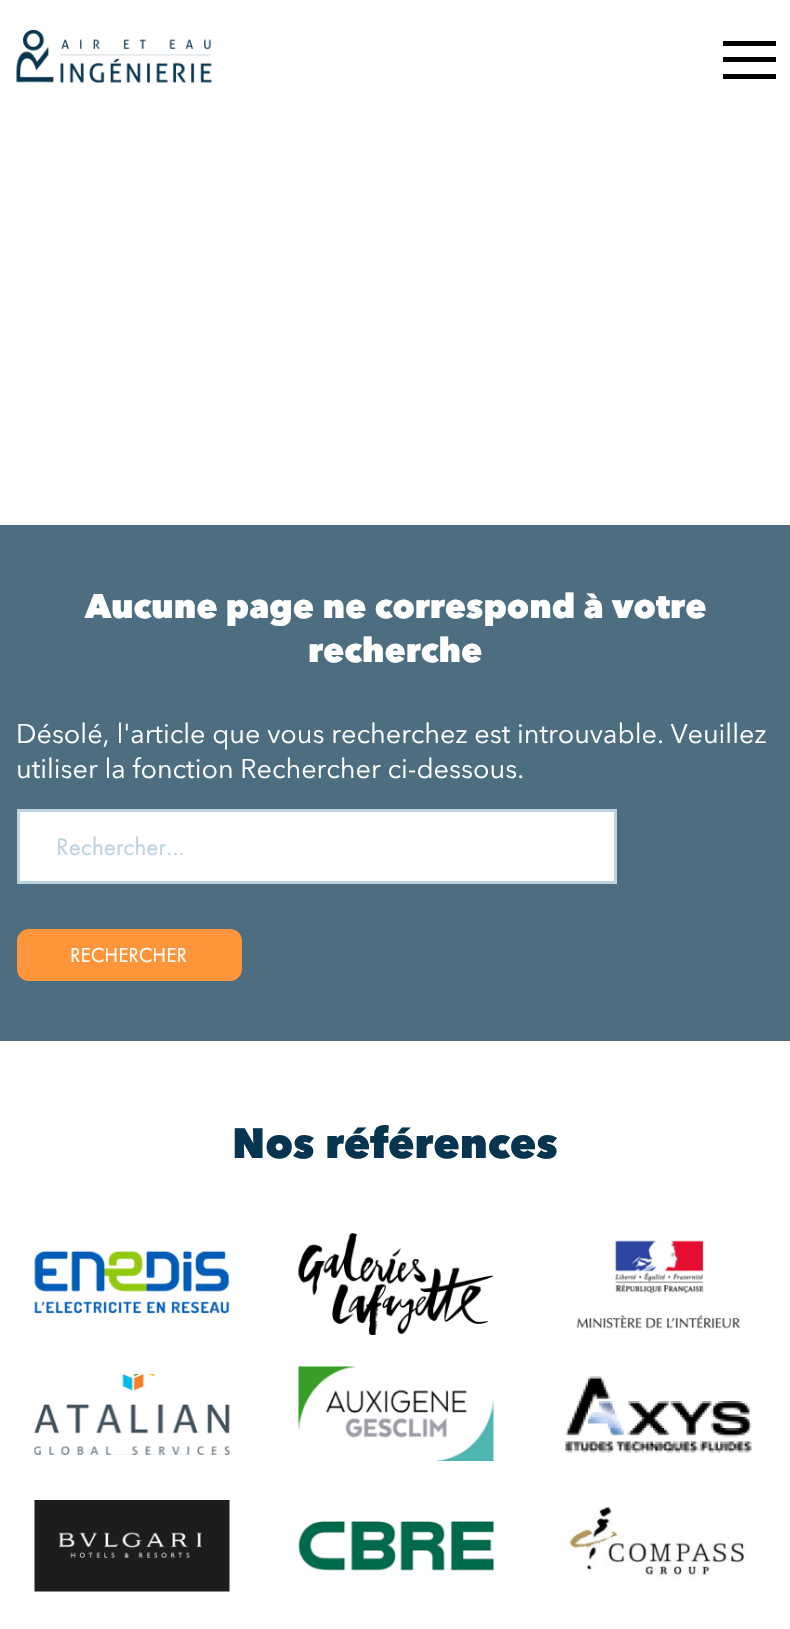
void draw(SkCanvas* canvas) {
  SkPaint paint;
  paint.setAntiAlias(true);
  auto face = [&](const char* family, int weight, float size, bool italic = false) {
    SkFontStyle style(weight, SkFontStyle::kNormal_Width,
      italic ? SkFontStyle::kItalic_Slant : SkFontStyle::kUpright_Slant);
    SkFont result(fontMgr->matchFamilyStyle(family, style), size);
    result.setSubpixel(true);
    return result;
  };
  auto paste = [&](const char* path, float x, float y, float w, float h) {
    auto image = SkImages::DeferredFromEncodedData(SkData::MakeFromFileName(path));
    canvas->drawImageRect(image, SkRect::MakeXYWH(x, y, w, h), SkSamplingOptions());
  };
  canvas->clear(0xffffffff);
  paste("img/1.png", 16, 30, 196, 53);
  {
    const struct { float x, y, w, h; SkColor color; } items[] = {
      {723, 41, 53, 5, 0xff000000},
      {723, 57, 53, 5, 0xff000000},
      {723, 74, 53, 5, 0xff000000},
      {0, 525, 790, 516, 0xff4d6e81},
    };
    for (auto [x, y, w, h, color] : items) {
      paint.setColor(color);
      canvas->drawRect(SkRect::MakeXYWH(x, y, w, h), paint);
    }
  }
  paint.setColor(0xffffffff);
  canvas->drawRect(SkRect::MakeXYWH(18.5f, 810.5f, 597, 72), paint);
  paint.setStroke(true);
  paint.setStrokeWidth(3);
  paint.setColor(0xffbed3e0);
  canvas->drawRect(SkRect::MakeXYWH(18.5f, 810.5f, 597, 72), paint);
  paint.setStroke(false);
  paint.setColor(0xffff953b);
  canvas->drawRoundRect(SkRect::MakeXYWH(18, 930, 223, 50), 11, 11, paint);
  paint.setStroke(true);
  paint.setStrokeWidth(2);
  canvas->drawRoundRect(SkRect::MakeXYWH(18, 930, 223, 50), 11, 11, paint);
  paste("img/2.png", 34, 1250, 196, 64);
  paste("img/3.png", 298, 1233, 196, 102);
  paste("img/4.png", 576, 1240, 165, 89);
  paste("img/5.png", 34, 1374, 196, 81);
  paste("img/6.png", 298, 1366, 196, 95);
  paste("img/7.png", 564, 1376, 189, 77);
  paste("img/8.png", 34, 1500, 196, 92);
  paste("img/9.png", 298, 1521, 196, 50);
  paste("img/10.png", 561, 1506, 186, 74);
  auto f0 = face("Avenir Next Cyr", 900, 33.75f);
  paint.setStroke(false);
  paint.setColor(0xffffffff);
  canvas->drawString("Aucune page ne correspond à votre", 85, 618, f0, paint);
  canvas->drawString("recherche", 308, 662, f0, paint);
  auto f1 = face("Avenir Next Cyr", 400, 27);
  canvas->drawString("Désolé, l'article que vous recherchez est introuvable. Veuillez", 16, 743, f1, paint);
  canvas->drawString("utiliser la fonction Rechercher ci-dessous.", 16, 778, f1, paint);
  auto f2 = face("Futura PT", 400, 25.25f);
  paint.setColor(0xffbed3e0);
  canvas->drawString("Rechercher…", 56, 855, f2, paint);
  auto f3 = face("Futura PT", 400, 21);
  paint.setColor(0xffffffff);
  canvas->drawString("RECHERCHER", 70, 962, f3, paint);
  auto f4 = face("Avenir Next Cyr", 900, 42);
  paint.setColor(0xff07354f);
  canvas->drawString("Nos références", 232, 1158, f4, paint);
}
